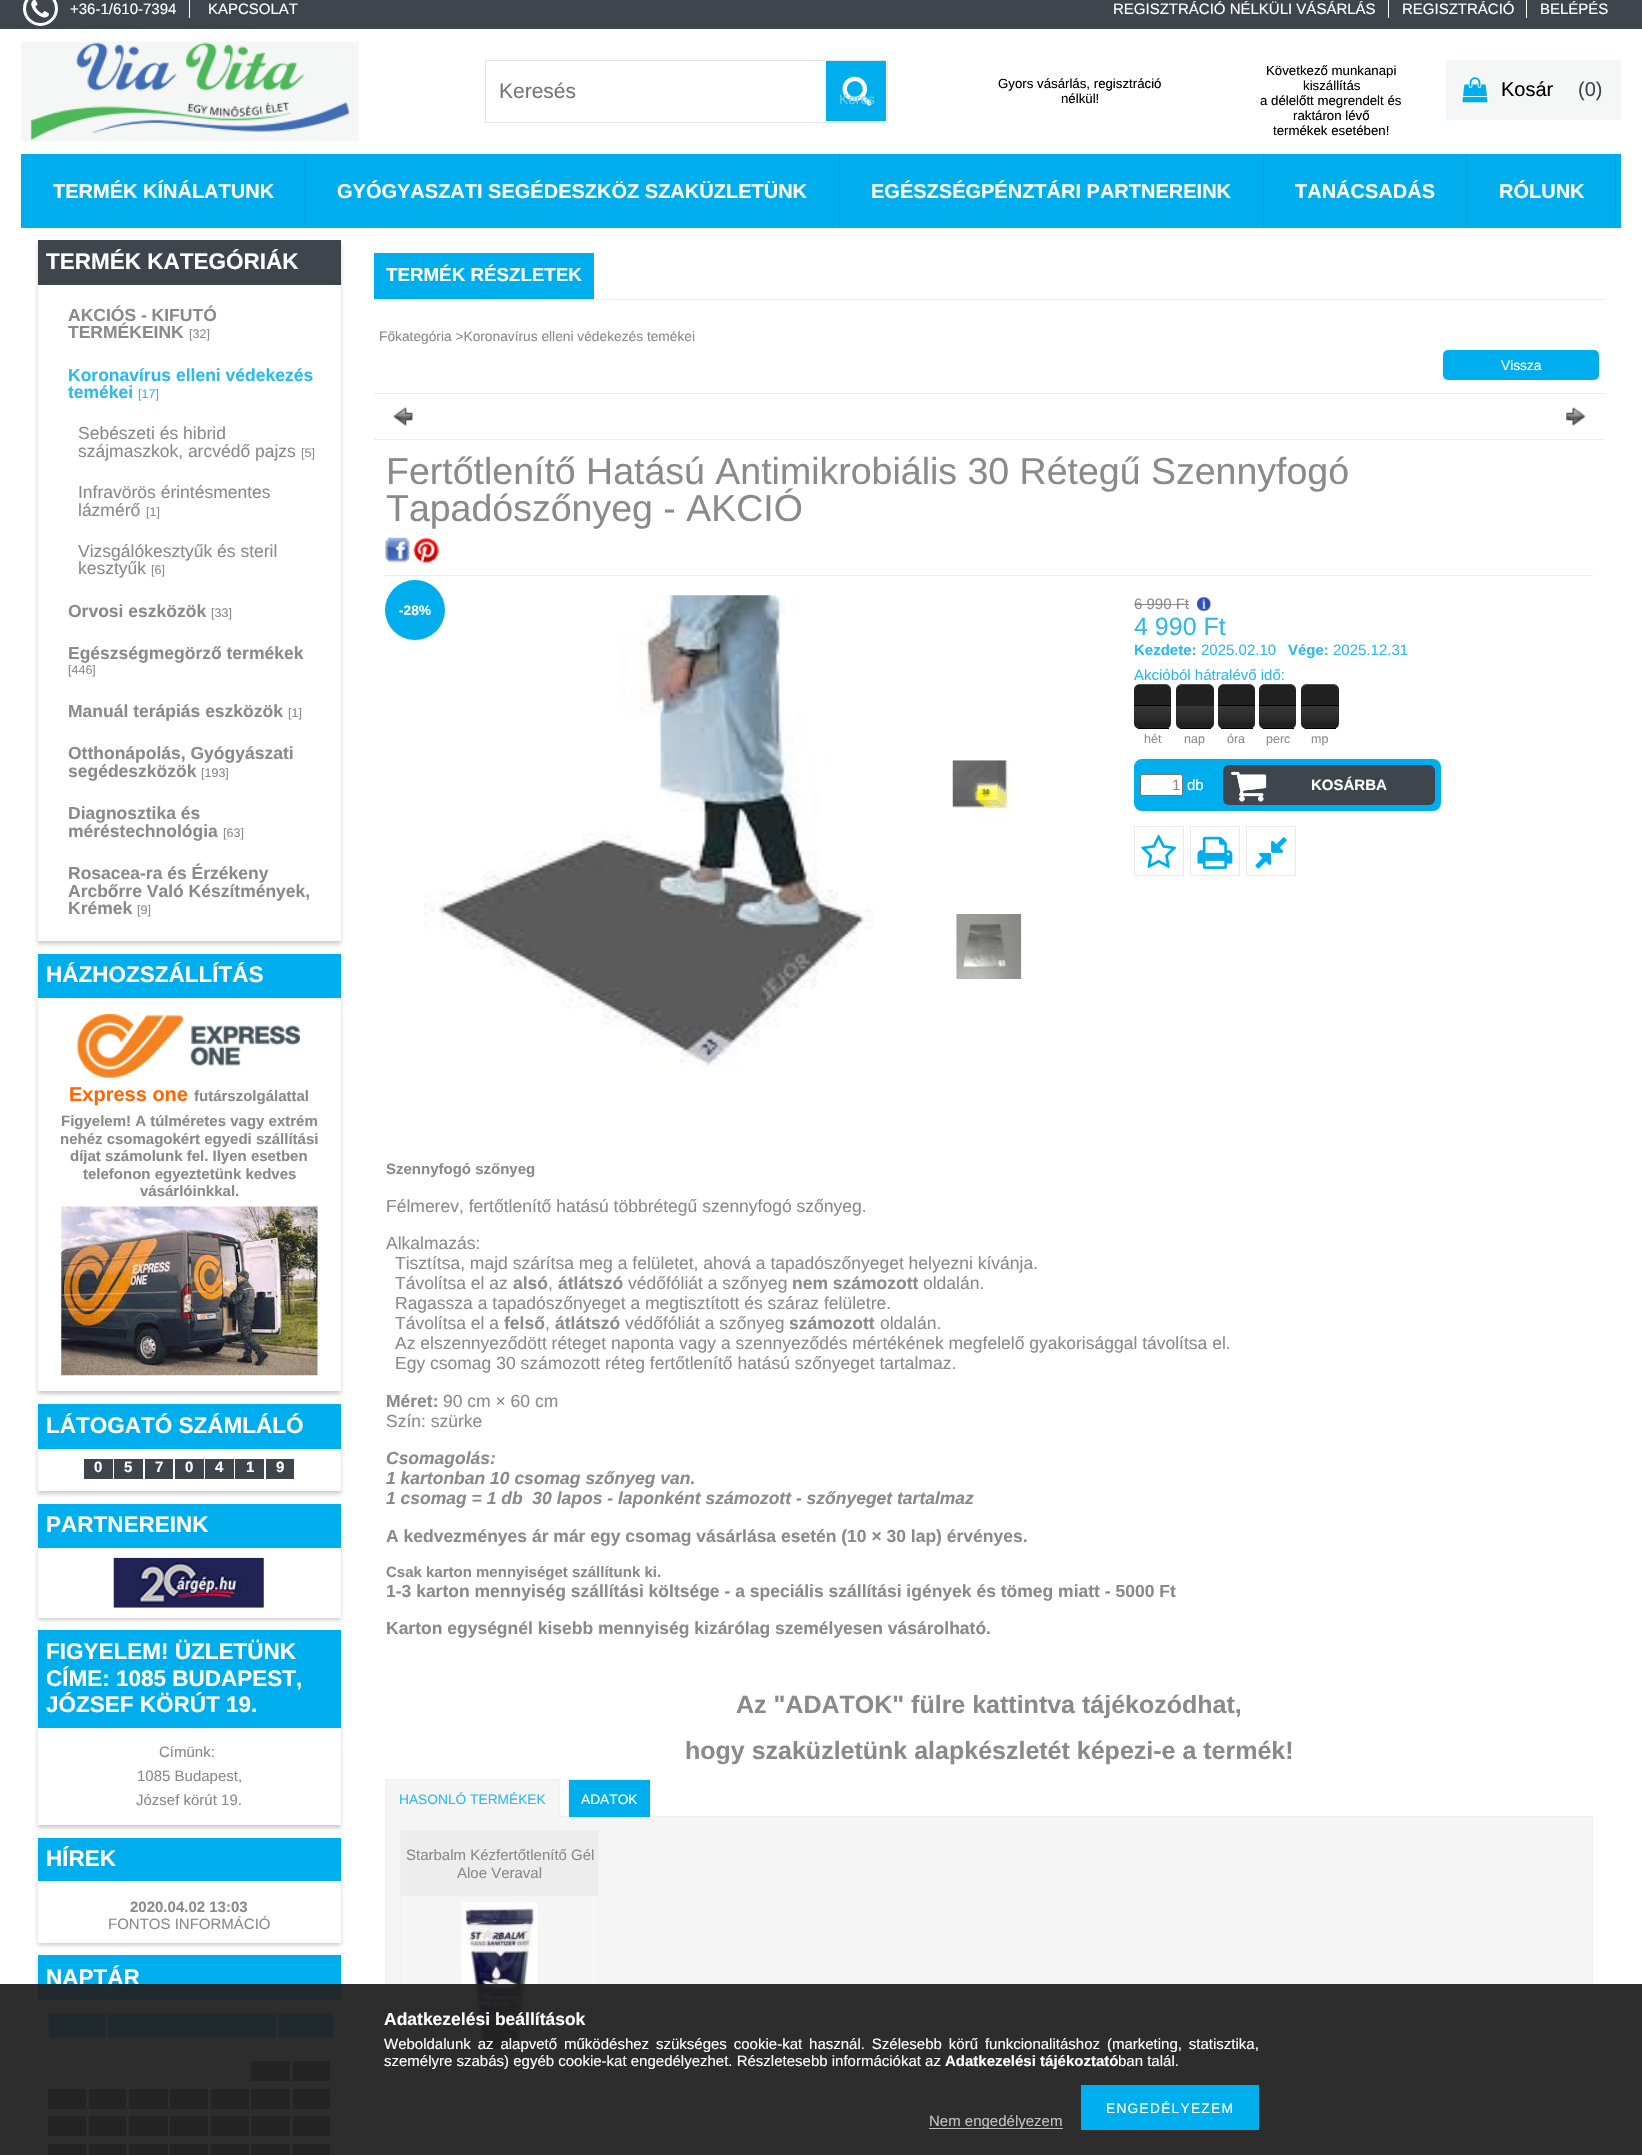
void draw(SkCanvas* canvas) {
  SkPaint paint;
  paint.setAntiAlias(true);
  auto face = [&](const char* family, int weight, float size, bool italic = false) {
    SkFontStyle style(weight, SkFontStyle::kNormal_Width,
      italic ? SkFontStyle::kItalic_Slant : SkFontStyle::kUpright_Slant);
    SkFont result(fontMgr->matchFamilyStyle(family, style), size);
    result.setSubpixel(true);
    return result;
  };
  auto writeSpaced = [&](const char* s, float x, float y, const SkFont& font, const SkPaint& ink, float letter, float word) {
    std::vector<SkGlyphID> glyphs(font.countText(s, strlen(s), SkTextEncoding::kUTF8));
    std::vector<float> xs(glyphs.size());
    font.textToGlyphs(s, strlen(s), SkTextEncoding::kUTF8, glyphs);
    font.getXPos(glyphs, xs, x);
    float extra = 0;
    for (size_t i = 0; i < glyphs.size(); i++) {
      xs[i] += extra;
      extra += letter + word * (glyphs[i] == font.unicharToGlyph(' '));
    }
    canvas->drawTextBlob(SkTextBlob::MakeFromPosHGlyphs(glyphs, xs, y, font), 0, 0, ink);
  };
  auto paste = [&](const char* path, float x, float y, float w, float h) {
    auto image = SkImages::DeferredFromEncodedData(SkData::MakeFromFileName(path));
    canvas->drawImageRect(image, SkRect::MakeXYWH(x, y, w, h), SkSamplingOptions());
  };
  auto shape = [&](const char* data, bool evenOdd = false) {
    SkPath result = *SkParsePath::FromSVGString(data);
    if (evenOdd) result.setFillType(SkPathFillType::kEvenOdd);
    return result;
  };
  canvas->clear(0xffffffff);
  paint.setColor(0xff3e454c);
  canvas->drawRect(SkRect::MakeXYWH(0, 0, 1642, 29), paint);
  paint.setColor(0xffffffff);
  canvas->drawRect(SkRect::MakeXYWH(189, 0, 1, 18), paint);
  paint.setStroke(true);
  paint.setStrokeWidth(3);
  canvas->drawCircle(40.5f, 8.5f, 16, paint);
  paste("img/1.png", 31, 0, 18, 18);
  paint.setStroke(false);
  canvas->drawRect(SkRect::MakeXYWH(1388, 0, 1, 18), paint);
  canvas->drawRect(SkRect::MakeXYWH(1526, 0, 1, 18), paint);
  paste("img/2.png", 21, 41, 338, 101);
  paint.setStroke(true);
  paint.setStrokeWidth(1);
  paint.setColor(0xffe6e6e6);
  canvas->drawRect(SkRect::MakeXYWH(485.5f, 60.5f, 402, 62), paint);
  paint.setStroke(false);
  paint.setColor(0xff00aeed);
  canvas->drawRect(SkRect::MakeXYWH(826, 61, 60, 60), paint);
  paste("img/3.png", 842, 76, 30, 30);
  paint.setColor(0xfff5f6f6);
  canvas->drawRect(SkRect::MakeXYWH(1446, 60, 175, 60), paint);
  paste("img/4.png", 1462, 77, 26, 26);
  paint.setColor(0xff00aeed);
  canvas->drawRect(SkRect::MakeXYWH(21, 154, 1600, 74), paint);
  canvas->save();
  canvas->clipRect(SkRect::MakeXYWH(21, 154, 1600, 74));
  canvas->clipPath(shape("M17 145H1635V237H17ZM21 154H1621V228H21Z", true), true);
  paint.setColor(0x33000000);
  paint.setMaskFilter(SkMaskFilter::MakeBlur(kNormal_SkBlurStyle, 2.5f));
  canvas->drawRect(SkRect::MakeXYWH(26, 154, 1600, 74), paint);
  paint.setMaskFilter(nullptr);
  canvas->restore();
  {
    const struct { float x, y, w, h; SkColor color; } items[] = {
      {305, 154, 1, 74, 0x12000000},
      {839, 154, 1, 74, 0x12000000},
      {1263, 154, 1, 74, 0x12000000},
      {1466, 154, 1, 74, 0x12000000},
      {1615, 154, 1, 74, 0x12000000},
    };
    for (auto [x, y, w, h, color] : items) {
      paint.setColor(color);
      canvas->drawRect(SkRect::MakeXYWH(x, y, w, h), paint);
    }
  }
  canvas->save();
  canvas->clipPath(shape("M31 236H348V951H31ZM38 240H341V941H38Z", true), true);
  paint.setColor(0x33000000);
  paint.setMaskFilter(SkMaskFilter::MakeBlur(kNormal_SkBlurStyle, 2));
  canvas->drawRect(SkRect::MakeXYWH(38, 243, 303, 701), paint);
  paint.setMaskFilter(nullptr);
  canvas->restore();
  paint.setColor(0xff3e454c);
  canvas->drawRect(SkRect::MakeXYWH(38, 240, 303, 45), paint);
  canvas->save();
  canvas->clipPath(shape("M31 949H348V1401H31ZM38 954H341V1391H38Z", true), true);
  paint.setColor(0x33000000);
  paint.setMaskFilter(SkMaskFilter::MakeBlur(kNormal_SkBlurStyle, 2));
  canvas->drawRect(SkRect::MakeXYWH(38, 956, 303, 438), paint);
  paint.setMaskFilter(nullptr);
  canvas->restore();
  paint.setColor(0xff00aeed);
  canvas->drawRect(SkRect::MakeXYWH(38, 954, 303, 44), paint);
  paste("img/5.png", 77, 1014, 223, 64);
  paste("img/6.png", 61, 1206, 257, 170);
  canvas->save();
  canvas->clipPath(shape("M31 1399H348V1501H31ZM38 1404H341V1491H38Z", true), true);
  paint.setColor(0x33000000);
  paint.setMaskFilter(SkMaskFilter::MakeBlur(kNormal_SkBlurStyle, 2));
  canvas->drawRect(SkRect::MakeXYWH(38, 1406, 303, 88), paint);
  paint.setMaskFilter(nullptr);
  canvas->restore();
  {
    const struct { float x, y, w, h; SkColor color; } items[] = {
      {38, 1404, 303, 45, 0xff00aeed},
      {84, 1459, 29, 20, 0xff3e454c},
      {114, 1459, 29, 20, 0xff3e454c},
      {145, 1459, 28, 20, 0xff3e454c},
      {175, 1459, 29, 20, 0xff3e454c},
      {205, 1459, 29, 20, 0xff3e454c},
      {235, 1459, 29, 20, 0xff3e454c},
      {266, 1459, 28, 20, 0xff3e454c},
    };
    for (auto [x, y, w, h, color] : items) {
      paint.setColor(color);
      canvas->drawRect(SkRect::MakeXYWH(x, y, w, h), paint);
    }
  }
  paint.setColor(0x33000000);
  paint.setMaskFilter(SkMaskFilter::MakeBlur(kNormal_SkBlurStyle, 2));
  canvas->drawRect(SkRect::MakeXYWH(38, 1506, 303, 114), paint);
  paint.setMaskFilter(nullptr);
  paint.setColor(0xff00aeed);
  canvas->drawRect(SkRect::MakeXYWH(38, 1504, 303, 44), paint);
  paint.setColor(0xffffffff);
  canvas->drawRect(SkRect::MakeXYWH(38, 1548, 303, 70), paint);
  paste("img/7.png", 113, 1557, 151, 51);
  canvas->save();
  canvas->clipPath(shape("M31 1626H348V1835H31ZM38 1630H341V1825H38Z", true), true);
  paint.setColor(0x33000000);
  paint.setMaskFilter(SkMaskFilter::MakeBlur(kNormal_SkBlurStyle, 2));
  canvas->drawRect(SkRect::MakeXYWH(38, 1633, 303, 195), paint);
  paint.setMaskFilter(nullptr);
  canvas->restore();
  paint.setColor(0xff00aeed);
  canvas->drawRect(SkRect::MakeXYWH(38, 1630, 303, 98), paint);
  paint.setColor(0x33000000);
  paint.setMaskFilter(SkMaskFilter::MakeBlur(kNormal_SkBlurStyle, 2));
  canvas->drawRect(SkRect::MakeXYWH(38, 1840, 303, 105), paint);
  paint.setMaskFilter(nullptr);
  paint.setColor(0xff00aeed);
  canvas->drawRect(SkRect::MakeXYWH(38, 1838, 303, 43), paint);
  paint.setColor(0xffffffff);
  canvas->drawRect(SkRect::MakeXYWH(38, 1881, 303, 62), paint);
  canvas->save();
  canvas->clipPath(shape("M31 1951H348V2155H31ZM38 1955H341V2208H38Z", true), true);
  paint.setColor(0x33000000);
  paint.setMaskFilter(SkMaskFilter::MakeBlur(kNormal_SkBlurStyle, 2));
  canvas->drawRect(SkRect::MakeXYWH(38, 1958, 303, 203), paint);
  paint.setMaskFilter(nullptr);
  canvas->restore();
  paint.setColor(0xff00aeed);
  canvas->drawRect(SkRect::MakeXYWH(38, 1955, 303, 45), paint);
  canvas->save();
  canvas->clipRect(SkRect::MakeXYWH(46, 2010, 287, 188));
  paint.setStroke(true);
  paint.setColor(0xffefefef);
  canvas->drawRect(SkRect::MakeXYWH(46.5f, 2010.5f, 288, 29), paint);
  canvas->restore();
  paint.setStroke(false);
  {
    const struct { float x, y, w, h; SkColor color; } items[] = {
      {49, 2013, 57, 25, 0xff00aeed},
      {108, 2013, 168, 25, 0xff00aeed},
      {278, 2013, 55, 25, 0xff00aeed},
      {251, 2061, 39, 20, 0xff3e454c},
      {293, 2061, 37, 20, 0xff3e454c},
      {48, 2089, 38, 20, 0xff3e454c},
      {89, 2089, 37, 20, 0xff3e454c},
      {129, 2089, 39, 20, 0xff3e454c},
      {170, 2089, 38, 20, 0xff3e454c},
      {211, 2089, 38, 20, 0xff3e454c},
      {251, 2089, 39, 20, 0xff3e454c},
      {293, 2089, 37, 20, 0xff3e454c},
      {48, 2116, 38, 20, 0xff3e454c},
      {89, 2116, 37, 20, 0xff3e454c},
      {129, 2116, 39, 20, 0xff3e454c},
      {170, 2116, 38, 20, 0xff3e454c},
      {211, 2116, 38, 20, 0xff3e454c},
      {251, 2116, 39, 20, 0xff3e454c},
      {293, 2116, 37, 20, 0xff3e454c},
      {48, 2144, 38, 11, 0xff3e454c},
      {89, 2144, 37, 11, 0xff3e454c},
      {129, 2144, 39, 11, 0xff3e454c},
      {170, 2144, 38, 11, 0xff3e454c},
      {211, 2144, 38, 11, 0xff3e454c},
      {251, 2144, 39, 11, 0xff3e454c},
      {293, 2144, 37, 11, 0xff3e454c},
      {374, 299, 1231, 1, 0xffefefef},
      {374, 253, 220, 46, 0xff00aeed},
    };
    for (auto [x, y, w, h, color] : items) {
      paint.setColor(color);
      canvas->drawRect(SkRect::MakeXYWH(x, y, w, h), paint);
    }
  }
  canvas->drawRoundRect(SkRect::MakeXYWH(1443, 350, 156, 30), 5, 5, paint);
  paint.setColor(0xffeceaea);
  canvas->drawRect(SkRect::MakeXYWH(374, 393, 1231, 1), paint);
  paste("img/8.png", 393, 407, 20, 19);
  paste("img/9.png", 1566, 407, 20, 19);
  canvas->drawRect(SkRect::MakeXYWH(374, 439, 1231, 1), paint);
  canvas->drawRect(SkRect::MakeXYWH(385, 575, 1208, 1), paint);
  paste("img/10.png", 385, 537, 25, 26);
  paste("img/11.png", 413, 537, 26, 26);
  paste("img/12.png", 424, 595, 451, 472);
  paint.setColor(0xff00aeed);
  canvas->drawCircle(415, 610, 30, paint);
  paste("img/13.png", 952, 760, 60, 61);
  paste("img/14.png", 956, 914, 66, 65);
  paint.setColor(0xff8b8a8a);
  canvas->drawRect(SkRect::MakeXYWH(1134, 604, 55, 1), paint);
  paste("img/15.png", 1196, 596, 16, 16);
  paint.setColor(0xff202020);
  canvas->drawPath(shape("M1140 684H1165C1168.5 684 1171 686.5 1171 690V708H1134V690C1134 686.5 1136.5 684 1140 684Z"), paint);
  paint.setColor(0x33ffffff);
  canvas->drawPath(shape("M1140 684C1136.5 684 1134 686.5 1134 690C1134 687 1136.5 685 1140 685H1165C1168.5 685 1171 687 1171 690C1171 686.5 1168.5 684 1165 684Z"), paint);
  paint.setColor(0xff202020);
  canvas->drawPath(shape("M1134 705H1171V723C1171 726.5 1168.5 729 1165 729H1140C1136.5 729 1134 726.5 1134 723Z"), paint);
  {
    const SkColor colors[] = {0x1affffff, 0x00ffffff};
    const float stops[] = {0, 1};
    const SkPoint ends[] = {{1153, 706}, {1153, 728}};
    paint.setShader(SkGradientShader::MakeLinear(ends, colors, stops, 2, SkTileMode::kClamp));
    paint.setAlpha(255);
  }
  canvas->drawRect(SkRect::MakeXYWH(1134, 706, 37, 17), paint);
  canvas->save();
  canvas->clipPath(shape("M1134 705H1171V723C1171 726.5 1168.5 729 1165 729H1140C1136.5 729 1134 726.5 1134 723Z"), true);
  {
    const SkColor colors[] = {0x1affffff, 0x00ffffff};
    const float stops[] = {0, 1};
    const SkPoint ends[] = {{1153, 728}, {1153, 749}};
    paint.setShader(SkGradientShader::MakeLinear(ends, colors, stops, 2, SkTileMode::kClamp));
    paint.setAlpha(255);
  }
  canvas->drawRect(SkRect::MakeXYWH(1134, 728, 4, 1), paint);
  canvas->restore();
  paint.setShader(nullptr);
  paint.setColor(0xff000000);
  canvas->drawRect(SkRect::MakeXYWH(1134, 705, 37, 1), paint);
  canvas->drawRect(SkRect::MakeXYWH(1138, 728, 31, 1), paint);
  paint.setColor(0xff202020);
  canvas->drawPath(shape("M1176 705H1214V723C1214 726.5 1211.5 729 1208 729H1182C1178.5 729 1176 726.5 1176 723Z"), paint);
  canvas->drawPath(shape("M1182 684H1208C1211.5 684 1214 686.5 1214 690V708H1176V690C1176 686.5 1178.5 684 1182 684Z"), paint);
  paint.setColor(0x33ffffff);
  canvas->drawPath(shape("M1182.5 684H1207.5C1210.5 684 1213 685.5 1214 688.5C1213 686.5 1210.5 685 1207.5 685H1182.5C1179.5 685 1177 686.5 1176 688.5C1176 685.5 1180 684 1182.5 684Z"), paint);
  paint.setColor(0xff363636);
  canvas->drawRect(SkRect::MakeXYWH(1176, 706, 38, 2), paint);
  {
    const SkColor colors[] = {0x1affffff, 0x00ffffff};
    const float stops[] = {0, 1};
    const SkPoint ends[] = {{1195, 706}, {1195, 728}};
    paint.setShader(SkGradientShader::MakeLinear(ends, colors, stops, 2, SkTileMode::kClamp));
    paint.setAlpha(255);
  }
  canvas->drawRect(SkRect::MakeXYWH(1176, 708, 38, 15), paint);
  canvas->save();
  canvas->clipPath(shape("M1176 705H1214V723C1214 726.5 1211.5 729 1208 729H1182C1178.5 729 1176 726.5 1176 723Z"), true);
  {
    const SkColor colors[] = {0x1affffff, 0x00ffffff};
    const float stops[] = {0, 1};
    const SkPoint ends[] = {{1195, 728}, {1195, 749}};
    paint.setShader(SkGradientShader::MakeLinear(ends, colors, stops, 2, SkTileMode::kClamp));
    paint.setAlpha(255);
  }
  canvas->drawRect(SkRect::MakeXYWH(1176, 728, 4, 1), paint);
  canvas->restore();
  paint.setShader(nullptr);
  paint.setColor(0xff000000);
  canvas->drawRect(SkRect::MakeXYWH(1180, 728, 31, 1), paint);
  paint.setColor(0xff202020);
  canvas->drawPath(shape("M1224 684H1249C1252.5 684 1255 686.5 1255 690V708H1218V690C1218 686.5 1220.5 684 1224 684Z"), paint);
  paint.setColor(0x33ffffff);
  canvas->drawPath(shape("M1224 684C1220.5 684 1217.5 686.5 1217.5 690C1217.5 687 1220.5 685 1224 685H1249C1252 685 1255 687 1255 690C1255 686.5 1252 684 1249 684Z"), paint);
  paint.setColor(0xff202020);
  canvas->drawPath(shape("M1218 705H1255V723C1255 726.5 1252.5 729 1249 729H1224C1220.5 729 1218 726.5 1218 723Z"), paint);
  {
    const SkColor colors[] = {0x1affffff, 0x00ffffff};
    const float stops[] = {0, 1};
    const SkPoint ends[] = {{1236, 706}, {1236, 728}};
    paint.setShader(SkGradientShader::MakeLinear(ends, colors, stops, 2, SkTileMode::kClamp));
    paint.setAlpha(255);
  }
  canvas->drawRect(SkRect::MakeXYWH(1218, 706, 37, 17), paint);
  paint.setShader(nullptr);
  paint.setColor(0xff000000);
  canvas->drawRect(SkRect::MakeXYWH(1218, 705, 37, 1), paint);
  canvas->drawRect(SkRect::MakeXYWH(1221, 728, 32, 1), paint);
  paint.setColor(0xff202020);
  canvas->drawPath(shape("M1265 684H1290C1293.5 684 1296 686.5 1296 690V708H1259V690C1259 686.5 1261.5 684 1265 684Z"), paint);
  paint.setColor(0x33ffffff);
  canvas->drawPath(shape("M1265 684C1261.5 684 1259 686.5 1259 690C1259 687 1261.5 685 1265 685H1290C1293.5 685 1296 687 1296 690C1296 686.5 1293.5 684 1290 684Z"), paint);
  paint.setColor(0xff202020);
  canvas->drawPath(shape("M1259 705H1296V723C1296 726.5 1293.5 729 1290 729H1265C1261.5 729 1259 726.5 1259 723Z"), paint);
  {
    const SkColor colors[] = {0x1affffff, 0x00ffffff};
    const float stops[] = {0, 1};
    const SkPoint ends[] = {{1278, 706}, {1278, 728}};
    paint.setShader(SkGradientShader::MakeLinear(ends, colors, stops, 2, SkTileMode::kClamp));
    paint.setAlpha(255);
  }
  canvas->drawRect(SkRect::MakeXYWH(1259, 706, 37, 17), paint);
  canvas->save();
  canvas->clipPath(shape("M1259 705H1296V723C1296 726.5 1293.5 729 1290 729H1265C1261.5 729 1259 726.5 1259 723Z"), true);
  {
    const SkColor colors[] = {0x1affffff, 0x00ffffff};
    const float stops[] = {0, 1};
    const SkPoint ends[] = {{1278, 728}, {1278, 749}};
    paint.setShader(SkGradientShader::MakeLinear(ends, colors, stops, 2, SkTileMode::kClamp));
    paint.setAlpha(255);
  }
  canvas->drawRect(SkRect::MakeXYWH(1259, 728, 4, 1), paint);
  canvas->restore();
  paint.setShader(nullptr);
  paint.setColor(0xff000000);
  canvas->drawRect(SkRect::MakeXYWH(1259, 705, 37, 1), paint);
  canvas->drawRect(SkRect::MakeXYWH(1263, 728, 31, 1), paint);
  paint.setColor(0xff202020);
  canvas->drawPath(shape("M1307 684H1333C1336.5 684 1339 686.5 1339 690V708H1301V690C1301 686.5 1303.5 684 1307 684Z"), paint);
  paint.setColor(0x33ffffff);
  canvas->drawPath(shape("M1307.5 684H1332.5C1335.5 684 1338 685.5 1339 688.5C1338 686.5 1335.5 685 1332.5 685H1307.5C1304.5 685 1302 686.5 1301 688.5C1301 685.5 1305 684 1307.5 684Z"), paint);
  paint.setColor(0xff202020);
  canvas->drawPath(shape("M1301 705H1339V723C1339 726.5 1336.5 729 1333 729H1307C1303.5 729 1301 726.5 1301 723Z"), paint);
  {
    const SkColor colors[] = {0x1affffff, 0x00ffffff};
    const float stops[] = {0, 1};
    const SkPoint ends[] = {{1320, 706}, {1320, 728}};
    paint.setShader(SkGradientShader::MakeLinear(ends, colors, stops, 2, SkTileMode::kClamp));
    paint.setAlpha(255);
  }
  canvas->drawRect(SkRect::MakeXYWH(1301, 706, 38, 17), paint);
  canvas->save();
  canvas->clipPath(shape("M1301 705H1339V723C1339 726.5 1336.5 729 1333 729H1307C1303.5 729 1301 726.5 1301 723Z"), true);
  {
    const SkColor colors[] = {0x1affffff, 0x00ffffff};
    const float stops[] = {0, 1};
    const SkPoint ends[] = {{1320, 728}, {1320, 749}};
    paint.setShader(SkGradientShader::MakeLinear(ends, colors, stops, 2, SkTileMode::kClamp));
    paint.setAlpha(255);
  }
  canvas->drawRect(SkRect::MakeXYWH(1301, 728, 4, 1), paint);
  canvas->restore();
  paint.setShader(nullptr);
  paint.setColor(0xff000000);
  canvas->drawRect(SkRect::MakeXYWH(1301, 705, 38, 1), paint);
  canvas->drawRect(SkRect::MakeXYWH(1305, 728, 31, 1), paint);
  paint.setColor(0xff00aeed);
  canvas->drawRoundRect(SkRect::MakeXYWH(1134, 759, 307, 52), 8, 8, paint);
  paint.setColor(0xffffffff);
  canvas->drawRoundRect(SkRect::MakeXYWH(1140.5f, 774.5f, 42, 21), 2, 2, paint);
  paint.setStroke(true);
  paint.setColor(0xff767676);
  canvas->drawRoundRect(SkRect::MakeXYWH(1140.5f, 774.5f, 42, 21), 2, 2, paint);
  paint.setStroke(false);
  paint.setColor(0xff3e454c);
  canvas->drawRoundRect(SkRect::MakeXYWH(1223, 765, 212, 40), 6, 6, paint);
  paste("img/16.png", 1231, 771, 36, 31);
  paste("img/17.png", 1231, 771, 36, 31);
  paint.setStroke(true);
  paint.setColor(0xffeaeaea);
  canvas->drawRect(SkRect::MakeXYWH(1134.5f, 826.5f, 49, 49), paint);
  paste("img/18.png", 1141, 834, 35, 34);
  canvas->drawRect(SkRect::MakeXYWH(1190.5f, 826.5f, 49, 49), paint);
  paste("img/19.png", 1197, 836, 36, 33);
  canvas->drawRect(SkRect::MakeXYWH(1246.5f, 826.5f, 49, 49), paint);
  paste("img/20.png", 1255, 837, 32, 32);
  paint.setStroke(false);
  paint.setColor(0xfff5f5f5);
  canvas->drawRect(SkRect::MakeXYWH(385.5f, 1816.5f, 1207, 336), paint);
  paint.setStroke(true);
  paint.setColor(0xffefefef);
  canvas->drawRect(SkRect::MakeXYWH(385.5f, 1816.5f, 1207, 336), paint);
  paint.setStroke(false);
  {
    const struct { float x, y, w, h; SkColor color; } items[] = {
      {386, 1780, 173, 37, 0xfff5f5f5},
      {385, 1779, 175, 1, 0xffefefef},
      {559, 1779, 1, 39, 0xffefefef},
      {385, 1816, 175, 1, 0xfff5f5f5},
      {385, 1779, 1, 39, 0xffefefef},
    };
    for (auto [x, y, w, h, color] : items) {
      paint.setColor(color);
      canvas->drawRect(SkRect::MakeXYWH(x, y, w, h), paint);
    }
  }
  paint.setColor(0xff00aeed);
  canvas->drawRect(SkRect::MakeXYWH(568.5f, 1779.5f, 82, 38), paint);
  paint.setStroke(true);
  paint.setColor(0xffefefef);
  canvas->drawRect(SkRect::MakeXYWH(568.5f, 1779.5f, 82, 38), paint);
  canvas->drawRect(SkRect::MakeXYWH(400.5f, 1830.5f, 198, 308), paint);
  paint.setStroke(false);
  paint.setColor(0xffededed);
  canvas->drawRect(SkRect::MakeXYWH(401, 1831, 197, 65), paint);
  paste("img/21.png", 461, 1902, 77, 183);
  canvas->drawRect(SkRect::MakeXYWH(401, 2090, 197, 48), paint);
  auto f0 = face("Liberation Sans", 400, 15);
  paint.setColor(0xffffffff);
  {
    const struct { const char* s; float x, y; } items[] = {
      {"+36-1/610-7394", 70, 14},
      {"KAPCSOLAT", 208, 14},
      {"REGISZTRÁCIÓ NÉLKÜLI VÁSÁRLÁS", 1113, 14},
      {"REGISZTRÁCIÓ", 1402, 14},
      {"BELÉPÉS", 1540, 14},
    };
    for (auto [s, x, y] : items) {
      canvas->drawString(s, x, y, f0, paint);
    }
  }
  auto f1 = face("Liberation Sans", 400, 21);
  paint.setColor(0xff757575);
  canvas->drawString("Keresés", 499, 98, f1, paint);
  auto f2 = face("Liberation Sans", 400, 13.75f);
  paint.setColor(0xff6ad0f5);
  canvas->drawString("Keres", 839, 104, f2, paint);
  auto f3 = face("Liberation Sans", 400, 13.25f);
  paint.setColor(0xff000000);
  {
    const struct { const char* s; float x, y; } items[] = {
      {"Gyors vásárlás, regisztráció", 998, 88},
      {"nélkül!", 1061, 103},
      {"Következő munkanapi", 1266, 75},
      {"kiszállítás", 1303, 90},
      {"a délelőtt megrendelt és", 1260, 105},
      {"raktáron lévő", 1293, 120},
      {"termékek esetében!", 1273, 135},
    };
    for (auto [s, x, y] : items) {
      canvas->drawString(s, x, y, f3, paint);
    }
  }
  auto f4 = face("Liberation Sans", 400, 20);
  canvas->drawString("Kosár", 1501, 96, f4, paint);
  paint.setColor(0xff3e454c);
  canvas->drawString("(0)", 1578, 96, f4, paint);
  auto f5 = face("Liberation Sans", 700, 20);
  paint.setColor(0xffffffff);
  {
    const struct { const char* s; float x, y; } items[] = {
      {"TERMÉK KÍNÁLATUNK", 53, 198},
      {"GYÓGYASZATI SEGÉDESZKÖZ SZAKÜZLETÜNK", 337, 198},
      {"EGÉSZSÉGPÉNZTÁRI PARTNEREINK", 871, 198},
      {"TANÁCSADÁS", 1295, 198},
      {"RÓLUNK", 1499, 198},
    };
    for (auto [s, x, y] : items) {
      canvas->drawString(s, x, y, f5, paint);
    }
  }
  auto f6 = face("Liberation Sans", 700, 22.5f);
  canvas->drawString("TERMÉK KATEGÓRIÁK", 46, 269, f6, paint);
  auto f7 = face("Liberation Sans", 700, 17.5f);
  paint.setColor(0xff8b8a8a);
  canvas->drawString("AKCIÓS - KIFUTÓ", 68, 321, f7, paint);
  canvas->drawString("TERMÉKEINK", 68, 338, f7, paint);
  auto f8 = face("Liberation Sans", 400, 12.5f);
  canvas->drawString("[32]", 189, 338, f8, paint);
  paint.setColor(0xff2db9ec);
  canvas->drawString("Koronavírus elleni védekezés", 68, 381, f7, paint);
  canvas->drawString("temékei", 68, 398, f7, paint);
  canvas->drawString("[17]", 138, 398, f8, paint);
  auto f9 = face("Liberation Sans", 400, 17.5f);
  paint.setColor(0xff8b8a8a);
  canvas->drawString("Sebészeti és hibrid", 78, 439, f9, paint);
  canvas->drawString("szájmaszkok, arcvédő pajzs", 78, 457, f9, paint);
  canvas->drawString("[5]", 301, 457, f8, paint);
  canvas->drawString("Infravörös érintésmentes", 78, 498, f9, paint);
  canvas->drawString("lázmérő", 78, 516, f9, paint);
  canvas->drawString("[1]", 146, 516, f8, paint);
  canvas->drawString("Vizsgálókesztyűk és steril", 78, 557, f9, paint);
  canvas->drawString("kesztyűk", 78, 574, f9, paint);
  canvas->drawString("[6]", 151, 574, f8, paint);
  canvas->drawString("Orvosi eszközök", 68, 617, f7, paint);
  canvas->drawString("[33]", 211, 617, f8, paint);
  canvas->drawString("Egészségmegörző termékek", 68, 659, f7, paint);
  canvas->drawString("[446]", 68, 674, f8, paint);
  canvas->drawString("Manuál terápiás eszközök", 68, 717, f7, paint);
  canvas->drawString("[1]", 288, 717, f8, paint);
  canvas->drawString("Otthonápolás, Gyógyászati", 68, 759, f7, paint);
  canvas->drawString("segédeszközök", 68, 777, f7, paint);
  canvas->drawString("[193]", 201, 777, f8, paint);
  canvas->drawString("Diagnosztika és", 68, 819, f7, paint);
  canvas->drawString("méréstechnológia", 68, 837, f7, paint);
  canvas->drawString("[63]", 223, 837, f8, paint);
  {
    const struct { const char* s; float x, y; } items[] = {
      {"Rosacea-ra és Érzékeny", 68, 879},
      {"Arcbőrre Való Készítmények,", 68, 897},
      {"Krémek", 68, 914},
    };
    for (auto [s, x, y] : items) {
      canvas->drawString(s, x, y, f7, paint);
    }
  }
  canvas->drawString("[9]", 137, 914, f8, paint);
  paint.setColor(0xffffffff);
  canvas->drawString("HÁZHOZSZÁLLÍTÁS", 46, 982, f6, paint);
  paint.setColor(0xffff6600);
  canvas->drawString("Express one", 69, 1101, f5, paint);
  auto f10 = face("Liberation Sans", 700, 15);
  paint.setColor(0xff8b8a8a);
  {
    const struct { const char* s; float x, y; } items[] = {
      {"futárszolgálattal", 194, 1101},
      {"Figyelem! A túlméretes vagy extrém", 61, 1126},
      {"nehéz csomagokért egyedi szállítási", 60, 1144},
      {"díjat számolunk fel. Ilyen esetben", 70, 1161},
      {"telefonon egyeztetünk kedves", 83, 1179},
      {"vásárlóinkkal.", 140, 1196},
    };
    for (auto [s, x, y] : items) {
      canvas->drawString(s, x, y, f10, paint);
    }
  }
  paint.setColor(0xffffffff);
  canvas->drawString("LÁTOGATÓ SZÁMLÁLÓ", 46, 1433, f6, paint);
  {
    const struct { const char* s; float x, y; } items[] = {
      {"0", 94, 1472},
      {"5", 124, 1472},
      {"7", 155, 1472},
      {"0", 185, 1472},
      {"4", 215, 1472},
      {"1", 246, 1472},
      {"9", 276, 1472},
    };
    for (auto [s, x, y] : items) {
      canvas->drawString(s, x, y, f10, paint);
    }
  }
  {
    const struct { const char* s; float x, y; } items[] = {
      {"PARTNEREINK", 46, 1532},
      {"FIGYELEM! ÜZLETÜNK", 46, 1659},
      {"CÍME: 1085 BUDAPEST,", 46, 1686},
      {"JÓZSEF KÖRÚT 19.", 46, 1712},
    };
    for (auto [s, x, y] : items) {
      canvas->drawString(s, x, y, f6, paint);
    }
  }
  paint.setColor(0xff8b8a8a);
  {
    const struct { const char* s; float x, y; } items[] = {
      {"Címünk:", 159, 1757},
      {"1085 Budapest,", 137, 1781},
      {"József körút 19.", 136, 1805},
    };
    for (auto [s, x, y] : items) {
      canvas->drawString(s, x, y, f0, paint);
    }
  }
  paint.setColor(0xffffffff);
  canvas->drawString("HÍREK", 46, 1866, f6, paint);
  paint.setColor(0xff8b8a8a);
  canvas->drawString("2020.04.02 13:03", 130, 1912, f10, paint);
  canvas->drawString("FONTOS INFORMÁCIÓ", 108, 1929, f0, paint);
  paint.setColor(0xffffffff);
  canvas->drawString("NAPTÁR", 46, 1985, f6, paint);
  auto f11 = face("Liberation Sans", 700, 18.75f);
  canvas->drawString("TERMÉK RÉSZLETEK", 386, 281, f11, paint);
  paint.setColor(0xff8b8a8a);
  canvas->drawString("Főkategória >Koronavírus elleni védekezés temékei", 379, 341, f2, paint);
  paint.setColor(0xffffffff);
  canvas->drawString("Vissza", 1501, 370, f2, paint);
  auto f12 = face("Liberation Sans", 400, 37.5f);
  paint.setColor(0xff8b8a8a);
  canvas->drawString("Fertőtlenítő Hatású Antimikrobiális 30 Rétegű Szennyfogó", 386, 484, f12, paint);
  canvas->drawString("Tapadószőnyeg - AKCIÓ", 386, 521, f12, paint);
  auto f13 = face("Liberation Sans", 700, 13.75f);
  paint.setColor(0xffffffff);
  canvas->drawString("-28%", 399, 615, f13, paint);
  paint.setColor(0xff8b8a8a);
  canvas->drawString("6 990 Ft", 1134, 609, f0, paint);
  auto f14 = face("Liberation Sans", 400, 25);
  paint.setColor(0xff2db9ec);
  canvas->drawString("4 990 Ft", 1134, 635, f14, paint);
  canvas->drawString("Kezdete:", 1134, 655, f10, paint);
  canvas->drawString("2025.02.10", 1201, 655, f0, paint);
  canvas->drawString("Vége:", 1288, 655, f10, paint);
  canvas->drawString("2025.12.31", 1333, 655, f0, paint);
  canvas->drawString("Akcióból hátralévő idő:", 1134, 680, f0, paint);
  paint.setColor(0xff8b8a8a);
  {
    const struct { const char* s; float x, y; } items[] = {
      {"hét", 1144, 743},
      {"nap", 1184, 743},
      {"óra", 1227, 743},
      {"perc", 1266, 743},
      {"mp", 1311, 743},
    };
    for (auto [s, x, y] : items) {
      canvas->drawString(s, x, y, f8, paint);
    }
  }
  canvas->drawString("1", 1172, 790, f0, paint);
  paint.setColor(0xffffffff);
  canvas->drawString("db", 1187, 790, f0, paint);
  canvas->drawString("KOSÁRBA", 1311, 790, f10, paint);
  paint.setColor(0xff8b8a8a);
  canvas->drawString("Szennyfogó szőnyeg", 386, 1174, f10, paint);
  {
    const struct { const char* s; float x, y; } items[] = {
      {"Félmerev, fertőtlenítő hatású többrétegű szennyfogó szőnyeg.", 386, 1212},
      {"Alkalmazás:", 386, 1249},
      {"Tisztítsa, majd szárítsa meg a felületet, ahová a tapadószőnyeget helyezni kívánja.", 395, 1269},
      {"Távolítsa el az", 395, 1289},
    };
    for (auto [s, x, y] : items) {
      canvas->drawString(s, x, y, f9, paint);
    }
  }
  canvas->drawString("alsó", 513, 1289, f7, paint);
  canvas->drawString(",", 548, 1289, f9, paint);
  canvas->drawString("átlátszó", 558, 1289, f7, paint);
  canvas->drawString("védőfóliát a szőnyeg", 628, 1289, f9, paint);
  canvas->drawString("nem számozott", 792, 1289, f7, paint);
  {
    const struct { const char* s; float x, y; } items[] = {
      {"oldalán.", 923, 1289},
      {"Ragassza a tapadószőnyeget a megtisztított és száraz felületre.", 395, 1309},
      {"Távolítsa el a", 395, 1329},
    };
    for (auto [s, x, y] : items) {
      canvas->drawString(s, x, y, f9, paint);
    }
  }
  canvas->drawString("felső", 504, 1329, f7, paint);
  canvas->drawString(",", 545, 1329, f9, paint);
  canvas->drawString("átlátszó", 555, 1329, f7, paint);
  canvas->drawString("védőfóliát a szőnyeg", 625, 1329, f9, paint);
  canvas->drawString("számozott", 789, 1329, f7, paint);
  {
    const struct { const char* s; float x, y; } items[] = {
      {"oldalán.", 880, 1329},
      {"Az elszennyeződött réteget naponta vagy a szennyeződés mértékének megfelelő gyakorisággal távolítsa el.", 395, 1349},
      {"Egy csomag 30 számozott réteg fertőtlenítő hatású szőnyeget tartalmaz.", 395, 1369},
    };
    for (auto [s, x, y] : items) {
      canvas->drawString(s, x, y, f9, paint);
    }
  }
  canvas->drawString("Méret:", 386, 1407, f7, paint);
  canvas->drawString("90 cm × 60 cm", 443, 1407, f9, paint);
  canvas->drawString("Szín: szürke", 386, 1427, f9, paint);
  auto f15 = face("Liberation Sans", 700, 17.5f, true);
  {
    const struct { const char* s; float x, y; } items[] = {
      {"Csomagolás:", 386, 1464},
      {"1 kartonban 10 csomag szőnyeg van.", 386, 1484},
      {"1 csomag = 1 db  30 lapos - laponként számozott - szőnyeget tartalmaz", 386, 1504},
    };
    for (auto [s, x, y] : items) {
      canvas->drawString(s, x, y, f15, paint);
    }
  }
  canvas->drawString("A kedvezményes ár már egy csomag vásárlása esetén (10 × 30 lap) érvényes.", 386, 1542, f7, paint);
  canvas->drawString("Csak karton mennyiséget szállítunk ki.", 386, 1577, f10, paint);
  canvas->drawString("1-3 karton mennyiség szállítási költsége - a speciális szállítási igények és tömeg miatt - 5000 Ft", 386, 1597, f7, paint);
  canvas->drawString("Karton egységnél kisebb mennyiség kizárólag személyesen vásárolható.", 386, 1634, f7, paint);
  auto f16 = face("Liberation Sans", 700, 25);
  canvas->drawString("Az \"ADATOK\" fülre kattintva tájékozódhat,", 736, 1713, f16, paint);
  canvas->drawString("hogy szaküzletünk alapkészletét képezi-e a termék!", 685, 1759, f16, paint);
  paint.setColor(0xff2db9ec);
  canvas->drawString("HASONLÓ TERMÉKEK", 399, 1804, f2, paint);
  paint.setColor(0xffffffff);
  canvas->drawString("ADATOK", 581, 1804, f2, paint);
  paint.setColor(0xff8b8a8a);
  canvas->drawString("Starbalm Kézfertőtlenítő Gél", 406, 1860, f0, paint);
  canvas->drawString("Aloe Veraval", 457, 1878, f0, paint);
  paint.setColor(0xf2222222);
  canvas->drawRect(SkRect::MakeXYWH(0, 1984, 1642, 171), paint);
  paint.setColor(0xffffffff);
  canvas->drawString("Adatkezelési beállítások", 384, 2025, f7, paint);
  writeSpaced("Weboldalunk az alapvető működéshez szükséges cookie-kat használ. Szélesebb körű funkcionalitáshoz (marketing, statisztika,", 384, 2049, f0, paint, 0, 2.75f);
  canvas->drawString("személyre szabás) egyéb cookie-kat engedélyezhet. Részletesebb információkat az", 384, 2066, f0, paint);
  canvas->drawString("Adatkezelési tájékoztató", 945, 2066, f10, paint);
  canvas->drawString("ban talál.", 1118, 2066, f0, paint);
  paint.setColor(0xff00aeed);
  canvas->drawRect(SkRect::MakeXYWH(1081, 2085, 178, 45), paint);
  paint.setColor(0xffffffff);
  writeSpaced("ENGEDÉLYEZEM", 1106, 2113, f2, paint, 1.25f, 0);
  paint.setColor(0xffc0c0c0);
  canvas->drawRect(SkRect::MakeXYWH(929, 2128, 134, 1), paint);
  canvas->drawString("Nem engedélyezem", 929, 2126, f0, paint);
}
